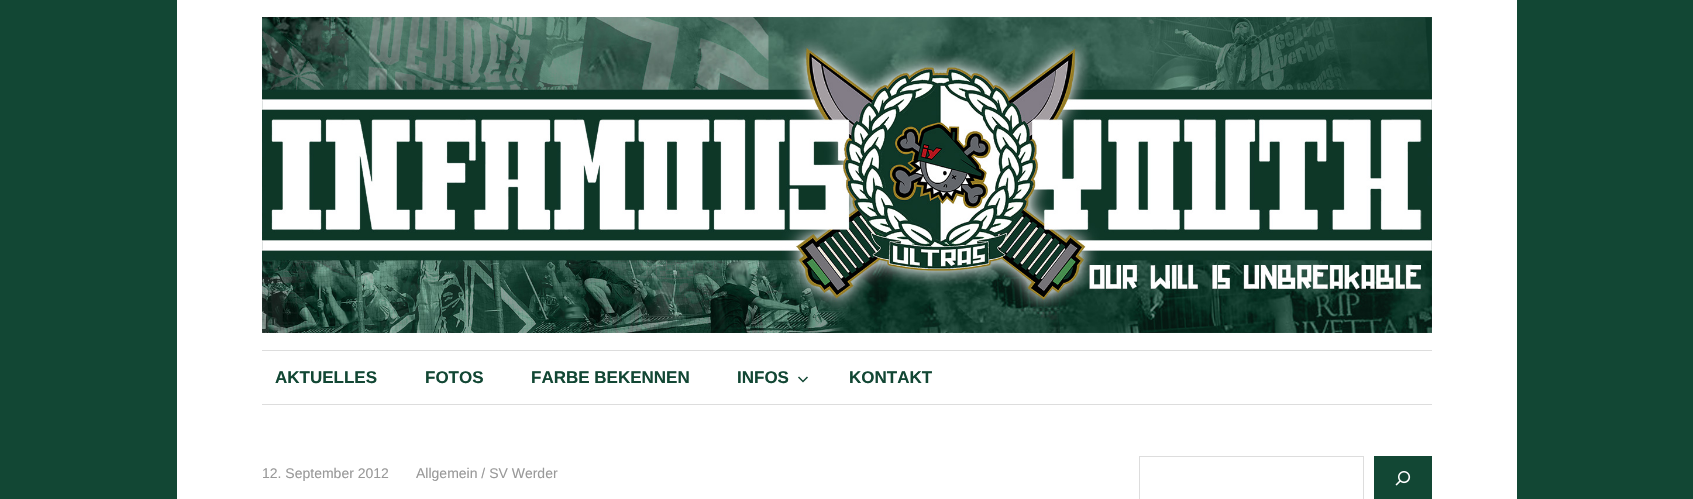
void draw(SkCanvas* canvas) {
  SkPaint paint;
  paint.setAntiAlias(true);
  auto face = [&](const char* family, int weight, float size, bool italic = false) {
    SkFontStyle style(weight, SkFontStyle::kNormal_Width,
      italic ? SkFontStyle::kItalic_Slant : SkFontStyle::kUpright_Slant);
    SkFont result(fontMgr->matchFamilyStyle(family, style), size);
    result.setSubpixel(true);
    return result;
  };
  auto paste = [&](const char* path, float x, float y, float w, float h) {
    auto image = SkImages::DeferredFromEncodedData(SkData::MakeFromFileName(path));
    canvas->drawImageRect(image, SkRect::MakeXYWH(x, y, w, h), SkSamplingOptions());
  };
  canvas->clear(0xff124734);
  paint.setColor(0xffffffff);
  canvas->drawRect(SkRect::MakeXYWH(177, 0, 1340, 499), paint);
  paste("img/1.png", 262, 17, 1170, 316);
  paint.setColor(0xffdddddd);
  canvas->drawRect(SkRect::MakeXYWH(262, 350, 1170, 1), paint);
  canvas->drawRect(SkRect::MakeXYWH(262, 404, 1170, 1), paint);
  paste("img/2.png", 798, 376, 10, 7);
  paint.setStroke(true);
  paint.setStrokeWidth(1);
  canvas->drawRect(SkRect::MakeXYWH(1139.5f, 456.5f, 224, 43), paint);
  paint.setStroke(false);
  paint.setColor(0xff124734);
  canvas->drawRect(SkRect::MakeXYWH(1374, 456, 58, 43), paint);
  paste("img/3.png", 1395, 471, 16, 15);
  auto f0 = face("Liberation Sans", 700, 17);
  {
    const struct { const char* s; float x, y; } items[] = {
      {"AKTUELLES", 275, 383},
      {"FOTOS", 425, 383},
      {"FARBE BEKENNEN", 531, 383},
      {"INFOS", 737, 383},
      {"KONTAKT", 849, 383},
    };
    for (auto [s, x, y] : items) {
      canvas->drawString(s, x, y, f0, paint);
    }
  }
  auto f1 = face("Liberation Sans", 400, 14);
  paint.setColor(0xff999999);
  canvas->drawString("12. September 2012", 262, 478, f1, paint);
  canvas->drawString("Allgemein / SV Werder", 416, 478, f1, paint);
}
